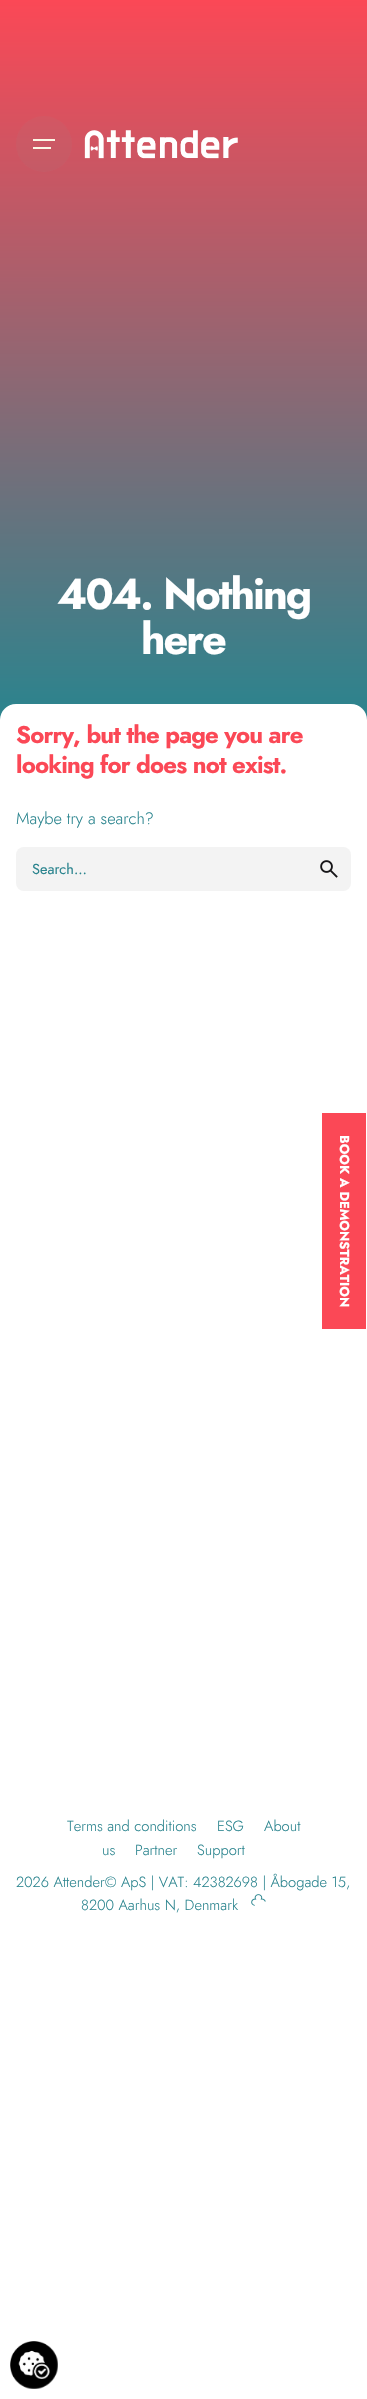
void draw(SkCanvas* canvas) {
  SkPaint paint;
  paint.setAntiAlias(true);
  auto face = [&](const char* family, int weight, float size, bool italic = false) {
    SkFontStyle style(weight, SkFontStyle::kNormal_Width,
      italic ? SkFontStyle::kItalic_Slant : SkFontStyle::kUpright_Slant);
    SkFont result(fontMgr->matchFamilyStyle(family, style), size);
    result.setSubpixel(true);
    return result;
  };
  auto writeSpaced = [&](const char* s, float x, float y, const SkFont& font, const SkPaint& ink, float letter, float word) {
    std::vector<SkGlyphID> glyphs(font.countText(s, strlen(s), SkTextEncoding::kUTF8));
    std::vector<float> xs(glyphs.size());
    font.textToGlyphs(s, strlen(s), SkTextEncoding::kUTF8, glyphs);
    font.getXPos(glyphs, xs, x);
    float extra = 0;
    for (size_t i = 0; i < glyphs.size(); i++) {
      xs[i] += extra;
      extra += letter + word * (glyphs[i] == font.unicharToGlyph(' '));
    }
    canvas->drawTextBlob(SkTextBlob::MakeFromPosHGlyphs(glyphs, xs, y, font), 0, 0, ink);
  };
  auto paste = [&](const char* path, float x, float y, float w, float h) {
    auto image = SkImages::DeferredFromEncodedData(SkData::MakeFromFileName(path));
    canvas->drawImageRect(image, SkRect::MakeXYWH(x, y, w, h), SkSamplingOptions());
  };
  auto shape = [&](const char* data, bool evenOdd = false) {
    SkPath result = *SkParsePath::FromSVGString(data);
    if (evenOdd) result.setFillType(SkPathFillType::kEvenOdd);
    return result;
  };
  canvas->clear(0xffffffff);
  {
    const SkColor colors[] = {0xfffb4856, 0xff2a848e};
    const float stops[] = {0, 1};
    const SkPoint ends[] = {{183, 0}, {184, 720}};
    paint.setShader(SkGradientShader::MakeLinear(ends, colors, stops, 2, SkTileMode::kClamp));
    paint.setAlpha(255);
  }
  canvas->drawRect(SkRect::MakeXYWH(0, 0, 367, 720), paint);
  paint.setShader(nullptr);
  paint.setColor(0x14888889);
  canvas->drawCircle(44, 144, 28, paint);
  paint.setColor(0xfffcf9e7);
  canvas->drawRect(SkRect::MakeXYWH(33, 139, 22, 2), paint);
  canvas->drawRect(SkRect::MakeXYWH(33, 147, 18, 2), paint);
  paste("img/1.png", 84, 130, 154, 29);
  paint.setColor(0xffffffff);
  canvas->drawPath(shape("M16 704H351C360 704 367 711 367 720H0C0 711 7 704 16 704Z"), paint);
  paint.setColor(0xfff3f3f3);
  canvas->drawRoundRect(SkRect::MakeXYWH(16, 847, 335, 44), 8, 8, paint);
  paste("img/2.png", 320, 860, 18, 18);
  paste("img/3.png", 251, 1894, 15, 12);
  paint.setColor(0xfffb4856);
  canvas->drawRect(SkRect::MakeXYWH(322, 1113, 44, 216), paint);
  paste("img/4.png", 10, 2341, 48, 48);
  auto f0 = face("Jost", 700, 43.25f);
  paint.setColor(0xffffffff);
  writeSpaced("404. Nothing", 57, 609, f0, paint, -2, 0);
  writeSpaced("here", 141, 654, f0, paint, -2, 0);
  auto f1 = face("Jost", 700, 24);
  paint.setColor(0xfffb4856);
  writeSpaced("Sorry, but the page you are", 16, 743, f1, paint, -0.85f, 0);
  writeSpaced("looking for does not exist.", 16, 773, f1, paint, -0.85f, 0);
  auto f2 = face("Jost", 300, 16.5f);
  paint.setColor(0xff2a848e);
  canvas->drawString("Maybe try a search?", 16, 824, f2, paint);
  auto f3 = face("Jost", 400, 14.5f);
  canvas->drawString("Search...", 32, 874, f3, paint);
  auto f4 = face("Jost", 300, 14.75f);
  {
    const struct { const char* s; float x, y; } items[] = {
      {"Terms and conditions", 67, 1831},
      {"ESG", 217, 1831},
      {"About", 264, 1831},
      {"us", 102, 1855},
      {"Partner", 135, 1855},
      {"Support", 197, 1855},
      {"2026 Attender© ApS | VAT: 42382698 | Åbogade 15,", 16, 1887},
      {"8200 Aarhus N, Denmark", 81, 1910},
    };
    for (auto [s, x, y] : items) {
      canvas->drawString(s, x, y, f4, paint);
    }
  }
  auto f5 = face("Jost", 700, 13);
  paint.setColor(0xffffffff);
  canvas->save();
  canvas->rotate(90, 340, 1135);
  canvas->drawString("BOOK A DEMONSTRATION", 340, 1135, f5, paint);
  canvas->restore();
}
